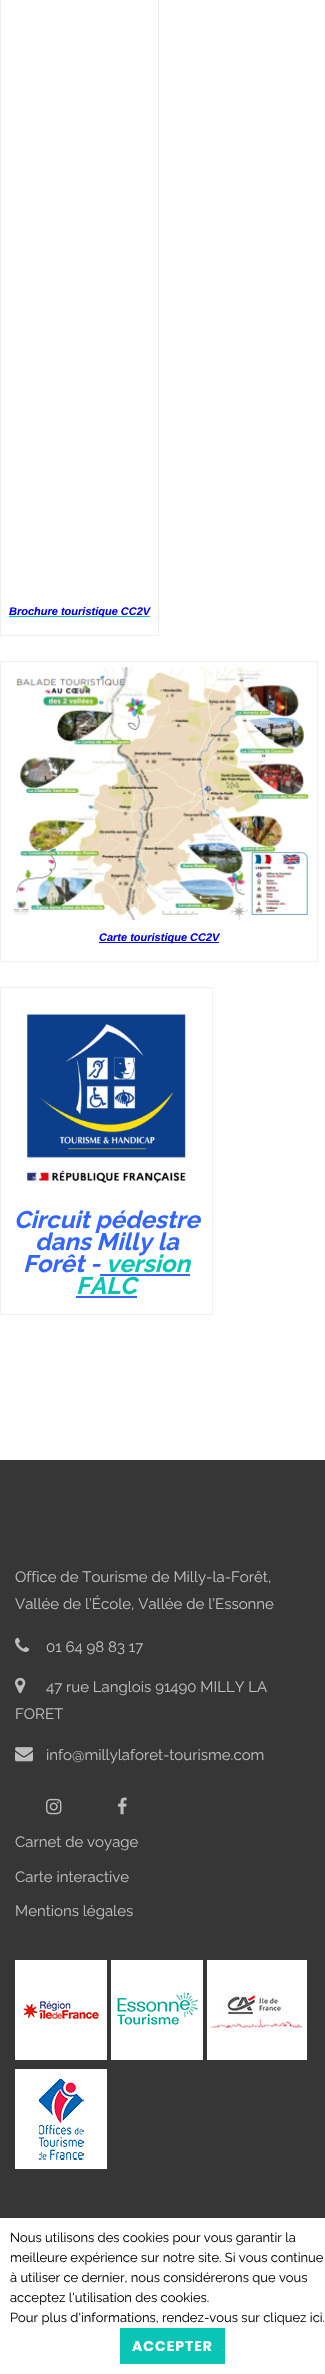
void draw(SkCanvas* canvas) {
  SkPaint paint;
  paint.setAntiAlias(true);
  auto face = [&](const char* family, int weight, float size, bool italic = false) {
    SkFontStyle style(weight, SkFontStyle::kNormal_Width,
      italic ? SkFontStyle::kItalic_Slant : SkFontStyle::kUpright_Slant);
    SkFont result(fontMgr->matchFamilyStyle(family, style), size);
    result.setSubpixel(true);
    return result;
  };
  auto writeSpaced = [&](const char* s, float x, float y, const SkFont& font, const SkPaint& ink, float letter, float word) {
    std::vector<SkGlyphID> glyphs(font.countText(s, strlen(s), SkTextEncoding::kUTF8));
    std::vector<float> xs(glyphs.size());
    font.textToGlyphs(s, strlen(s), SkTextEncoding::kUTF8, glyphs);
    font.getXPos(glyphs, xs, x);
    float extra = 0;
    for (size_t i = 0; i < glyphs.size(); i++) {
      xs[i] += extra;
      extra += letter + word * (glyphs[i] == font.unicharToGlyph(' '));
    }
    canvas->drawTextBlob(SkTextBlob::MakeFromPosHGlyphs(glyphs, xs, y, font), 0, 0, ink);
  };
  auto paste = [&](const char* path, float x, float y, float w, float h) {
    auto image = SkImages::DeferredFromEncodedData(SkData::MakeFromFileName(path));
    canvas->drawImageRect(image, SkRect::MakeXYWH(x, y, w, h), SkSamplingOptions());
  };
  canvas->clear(0xffffffff);
  paint.setStroke(true);
  paint.setStrokeWidth(1);
  paint.setColor(0xfff0f0f0);
  canvas->drawRect(SkRect::MakeXYWH(0.5f, -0.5f, 158, 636), paint);
  paint.setStroke(false);
  paint.setColor(0xff0ac4b6);
  canvas->drawRect(SkRect::MakeXYWH(9, 616, 141, 1), paint);
  paint.setStroke(true);
  paint.setColor(0xfff0f0f0);
  canvas->drawRect(SkRect::MakeXYWH(0.5f, 661.5f, 317, 300), paint);
  paste("img/1.png", 13, 667, 296, 253);
  paint.setStroke(false);
  paint.setColor(0xff0000ff);
  canvas->drawRect(SkRect::MakeXYWH(99, 942, 120, 1), paint);
  paint.setStroke(true);
  paint.setColor(0xfff0f0f0);
  canvas->drawRect(SkRect::MakeXYWH(0.5f, 987.5f, 212, 327), paint);
  paste("img/2.png", 26, 1014, 160, 169);
  paint.setStroke(false);
  {
    const struct { float x, y, w, h; SkColor color; } items[] = {
      {100, 1274, 90, 2, 0xff3366ff},
      {76, 1296, 61, 2, 0xff3366ff},
      {0, 1460, 325, 758, 0xff363636},
    };
    for (auto [x, y, w, h, color] : items) {
      paint.setColor(color);
      canvas->drawRect(SkRect::MakeXYWH(x, y, w, h), paint);
    }
  }
  paste("img/3.png", 15, 1637, 15, 15);
  paste("img/4.png", 15, 1677, 11, 17);
  paste("img/5.png", 15, 1747, 18, 15);
  paste("img/6.png", 46, 1798, 16, 17);
  paste("img/7.png", 117, 1797, 10, 18);
  paste("img/8.png", 15, 1960, 92, 100);
  paste("img/9.png", 111, 1960, 92, 100);
  paste("img/10.png", 207, 1960, 100, 100);
  paste("img/11.png", 15, 2069, 92, 100);
  paint.setColor(0xff0ac4b6);
  canvas->drawRect(SkRect::MakeXYWH(120, 2328, 105, 36), paint);
  auto f0 = face("Liberation Sans", 700, 11, true);
  paint.setColor(0xff0000ff);
  canvas->drawString("Brochure touristique CC2V", 9, 615, f0, paint);
  canvas->drawString("Carte touristique CC2V", 99, 941, f0, paint);
  auto f1 = face("Raleway", 100, 24, true);
  paint.setColor(0xff3366ff);
  {
    const struct { const char* s; float x, y; } items[] = {
      {"Circuit pédestre", 14, 1228},
      {"dans Milly la", 35, 1250},
      {"Forêt -", 23, 1272},
    };
    for (auto [s, x, y] : items) {
      canvas->drawString(s, x, y, f1, paint);
    }
  }
  paint.setColor(0xff0ac4b6);
  canvas->drawString("version", 106, 1272, f1, paint);
  canvas->drawString("FALC", 76, 1294, f1, paint);
  auto f2 = face("Raleway", 100, 15);
  paint.setColor(0xffbdbdbd);
  {
    const struct { const char* s; float x, y; } items[] = {
      {"Office de Tourisme de Milly-la-Forêt,", 15, 1582},
      {"Vallée de l’École, Vallée de l’Essonne", 15, 1609},
      {"01 64 98 83 17", 46, 1652},
      {"47 rue Langlois 91490 MILLY LA", 46, 1692},
      {"FORET", 15, 1719},
      {"info@millylaforet-tourisme.com", 46, 1760},
      {"Carnet de voyage", 15, 1847},
      {"Carte interactive", 15, 1882},
      {"Mentions légales", 15, 1916},
    };
    for (auto [s, x, y] : items) {
      canvas->drawString(s, x, y, f2, paint);
    }
  }
  auto f3 = face("Raleway", 100, 13);
  paint.setColor(0xff0a0a0a);
  {
    const struct { const char* s; float x, y; } items[] = {
      {"Nous utilisons des cookies pour vous garantir la", 10, 2242},
      {"meilleure expérience sur notre site. Si vous continue", 10, 2262},
      {"à utiliser ce dernier, nous considérerons que vous", 10, 2282},
      {"acceptez l'utilisation des cookies.", 10, 2302},
      {"Pour plus d'informations, rendez-vous sur cliquez ici.", 10, 2322},
    };
    for (auto [s, x, y] : items) {
      canvas->drawString(s, x, y, f3, paint);
    }
  }
  auto f4 = face("Poppins", 700, 14);
  paint.setColor(0xffffffff);
  writeSpaced("ACCEPTER", 132, 2351, f4, paint, 1, 0);
}
